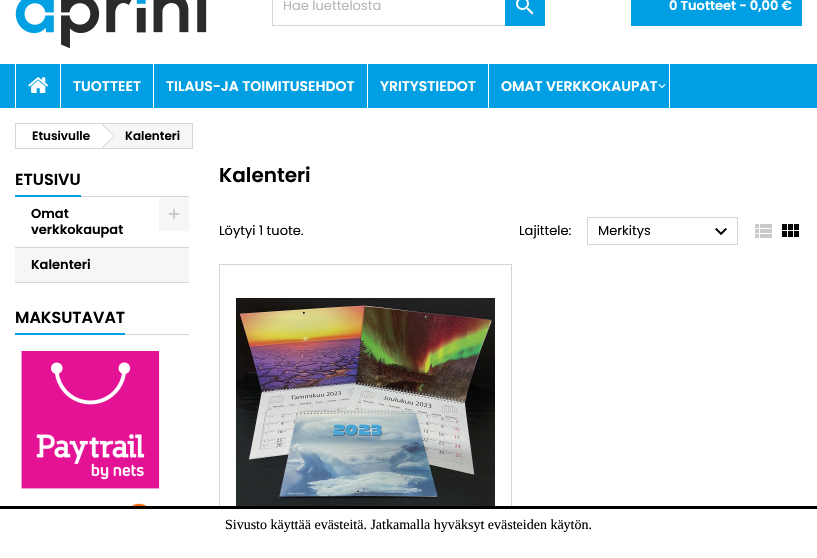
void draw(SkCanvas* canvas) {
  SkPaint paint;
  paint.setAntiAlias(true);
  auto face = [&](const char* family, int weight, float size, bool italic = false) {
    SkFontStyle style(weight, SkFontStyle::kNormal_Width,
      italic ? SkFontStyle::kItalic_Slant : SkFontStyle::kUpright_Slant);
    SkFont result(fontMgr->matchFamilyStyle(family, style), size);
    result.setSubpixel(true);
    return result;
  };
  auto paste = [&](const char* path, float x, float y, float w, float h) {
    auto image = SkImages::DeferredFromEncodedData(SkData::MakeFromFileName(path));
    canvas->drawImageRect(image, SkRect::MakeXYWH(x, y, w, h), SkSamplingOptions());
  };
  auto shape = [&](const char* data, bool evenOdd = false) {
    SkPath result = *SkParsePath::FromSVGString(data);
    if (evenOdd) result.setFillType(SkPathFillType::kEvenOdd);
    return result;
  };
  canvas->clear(0xffffffff);
  paste("img/1.png", 15, 0, 192, 49);
  paint.setStroke(true);
  paint.setStrokeWidth(1);
  paint.setColor(0xffd6d4d4);
  canvas->drawRect(SkRect::MakeXYWH(272.5f, -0.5f, 272, 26), paint);
  paint.setStroke(false);
  paint.setColor(0xff009ee2);
  canvas->drawRect(SkRect::MakeXYWH(505, 0, 40, 26), paint);
  paste("img/2.png", 516, 0, 18, 15);
  {
    const struct { float x, y, w, h; SkColor color; } items[] = {
      {631, 0, 171, 26, 0xff009ee2},
      {0, 64, 817, 44, 0xff009ee2},
      {15, 64, 1, 44, 0xffffffff},
    };
    for (auto [x, y, w, h, color] : items) {
      paint.setColor(color);
      canvas->drawRect(SkRect::MakeXYWH(x, y, w, h), paint);
    }
  }
  paste("img/3.png", 28, 77, 21, 16);
  {
    const struct { float x, y, w, h; SkColor color; } items[] = {
      {60, 64, 1, 44, 0xffffffff},
      {153, 64, 1, 44, 0xffffffff},
      {367, 64, 1, 44, 0xffffffff},
      {669, 64, 1, 44, 0xffffffff},
      {488, 64, 1, 44, 0xffffffff},
    };
    for (auto [x, y, w, h, color] : items) {
      paint.setColor(color);
      canvas->drawRect(SkRect::MakeXYWH(x, y, w, h), paint);
    }
  }
  paste("img/4.png", 658, 84, 8, 5);
  paint.setStroke(true);
  paint.setColor(0xffd6d4d4);
  canvas->drawRect(SkRect::MakeXYWH(15.5f, 123.5f, 177, 25), paint);
  paint.setStroke(false);
  paint.setColor(0xfff6f6f6);
  canvas->drawRect(SkRect::MakeXYWH(103, 124, 89, 24), paint);
  paint.setColor(0xffffffff);
  canvas->drawPath(shape("M103.5 124.5L113.5 134.5C114 135.5 114 136.5 113.5 137.5L103.5 147.5C102.5 148 101.5 148 100.5 147.5L90.5 137.5C90 136.5 90 135.5 90.5 134.5L100.5 124.5C101.5 124 102.5 124 103.5 124.5Z"), paint);
  paint.setColor(0xffd6d4d4);
  canvas->drawPath(shape("M103 124L114 135.5L113.5 136L102 124.5ZM113.5 136L114 136.5L103 148L102 147.5Z"), paint);
  {
    const struct { float x, y, w, h; SkColor color; } items[] = {
      {81, 196, 108, 1, 0xffd6d4d4},
      {15, 195, 66, 2, 0xff009ee2},
      {15, 247, 174, 1, 0xffd6d4d4},
      {159, 197, 30, 34, 0xfff6f6f6},
    };
    for (auto [x, y, w, h, color] : items) {
      paint.setColor(color);
      canvas->drawRect(SkRect::MakeXYWH(x, y, w, h), paint);
    }
  }
  paste("img/5.png", 168, 208, 12, 12);
  {
    const struct { float x, y, w, h; SkColor color; } items[] = {
      {15, 248, 174, 34, 0xfff6f6f6},
      {15, 282, 174, 1, 0xffd6d4d4},
      {125, 334, 64, 1, 0xffd6d4d4},
      {15, 333, 110, 2, 0xff009ee2},
    };
    for (auto [x, y, w, h, color] : items) {
      paint.setColor(color);
      canvas->drawRect(SkRect::MakeXYWH(x, y, w, h), paint);
    }
  }
  paste("img/6.png", 21, 351, 139, 155);
  paint.setStroke(true);
  paint.setColor(0xffd6d4d4);
  canvas->drawRect(SkRect::MakeXYWH(587.5f, 217.5f, 150, 27), paint);
  paste("img/7.png", 715, 227, 12, 9);
  paste("img/8.png", 755, 224, 17, 14);
  paste("img/9.png", 782, 224, 17, 13);
  canvas->drawRect(SkRect::MakeXYWH(219.5f, 264.5f, 292, 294), paint);
  paste("img/10.png", 236, 298, 259, 208);
  paint.setStroke(false);
  paint.setColor(0xffffffff);
  canvas->drawRect(SkRect::MakeXYWH(219, 509, 293, 49), paint);
  paint.setColor(0xff000000);
  canvas->drawRect(SkRect::MakeXYWH(0, 506, 817, 3), paint);
  auto f0 = face("Poppins", 400, 13);
  paint.setColor(0xffb7b7b7);
  canvas->drawString("Hae luettelosta", 283, 10, f0, paint);
  auto f1 = face("Poppins", 600, 13);
  paint.setColor(0xffffffff);
  canvas->drawString("0 Tuotteet - 0,00 €", 669, 10, f1, paint);
  auto f2 = face("Poppins", 600, 14);
  {
    const struct { const char* s; float x, y; } items[] = {
      {"TUOTTEET", 73, 91},
      {"TILAUS-JA TOIMITUSEHDOT", 166, 91},
      {"YRITYSTIEDOT", 380, 91},
      {"OMAT VERKKOKAUPAT", 501, 91},
    };
    for (auto [s, x, y] : items) {
      canvas->drawString(s, x, y, f2, paint);
    }
  }
  auto f3 = face("Poppins", 600, 12);
  paint.setColor(0xff000000);
  canvas->drawString("Etusivulle", 32, 140, f3, paint);
  canvas->drawString("Kalenteri", 125, 140, f3, paint);
  auto f4 = face("Poppins", 600, 16);
  canvas->drawString("ETUSIVU", 15, 185, f4, paint);
  {
    const struct { const char* s; float x, y; } items[] = {
      {"Omat", 31, 218},
      {"verkkokaupat", 31, 234},
      {"Kalenteri", 31, 269},
    };
    for (auto [s, x, y] : items) {
      canvas->drawString(s, x, y, f1, paint);
    }
  }
  canvas->drawString("MAKSUTAVAT", 15, 323, f4, paint);
  auto f5 = face("Poppins", 600, 20);
  canvas->drawString("Kalenteri", 219, 182, f5, paint);
  {
    const struct { const char* s; float x, y; } items[] = {
      {"Löytyi 1 tuote.", 219, 235},
      {"Lajittele:", 519, 235},
      {"Merkitys", 598, 235},
    };
    for (auto [s, x, y] : items) {
      canvas->drawString(s, x, y, f0, paint);
    }
  }
  auto f6 = face("Liberation Serif", 400, 14);
  canvas->drawString("Sivusto käyttää evästeitä. Jatkamalla hyväksyt evästeiden käytön.", 225, 529, f6, paint);
}
